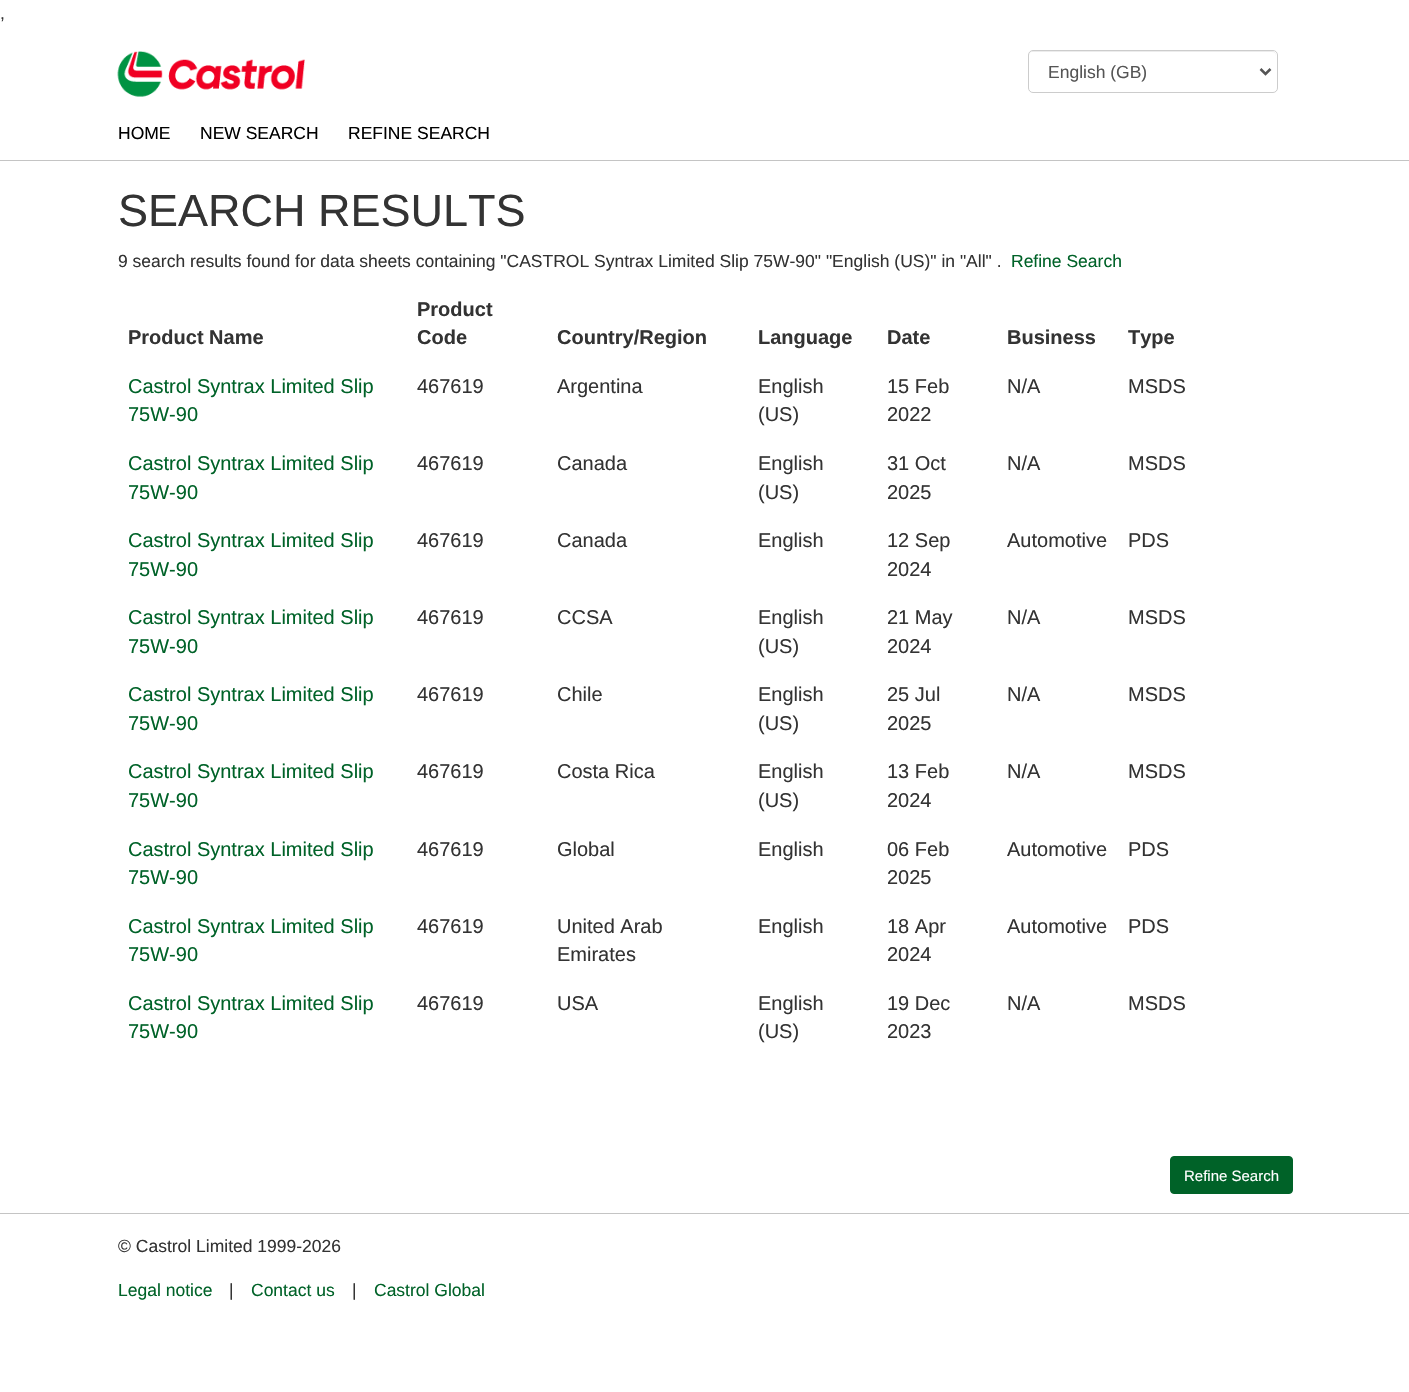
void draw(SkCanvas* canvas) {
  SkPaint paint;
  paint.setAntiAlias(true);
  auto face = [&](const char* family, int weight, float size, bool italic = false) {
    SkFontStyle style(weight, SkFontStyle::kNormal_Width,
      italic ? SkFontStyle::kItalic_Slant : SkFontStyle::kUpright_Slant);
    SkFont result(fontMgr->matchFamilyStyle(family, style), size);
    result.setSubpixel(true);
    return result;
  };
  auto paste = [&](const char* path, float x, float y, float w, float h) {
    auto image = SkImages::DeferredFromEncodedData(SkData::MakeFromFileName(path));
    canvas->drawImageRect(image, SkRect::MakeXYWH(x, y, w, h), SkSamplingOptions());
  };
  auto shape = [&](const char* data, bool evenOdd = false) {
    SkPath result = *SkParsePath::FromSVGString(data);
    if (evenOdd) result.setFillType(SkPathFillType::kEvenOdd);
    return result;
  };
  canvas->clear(0xffffffff);
  paste("img/1.png", 117, 51, 188, 46);
  paint.setColor(0xffececec);
  canvas->drawPath(shape("M1032 52H1272C1275 52 1276 54 1276 56V55C1276 53 1274 51 1272 51H1033C1031 51 1029 53 1029 55V56C1029 54 1030 52 1032 52Z"), paint);
  paint.setStroke(true);
  paint.setStrokeWidth(1);
  paint.setColor(0xffcccccc);
  canvas->drawRoundRect(SkRect::MakeXYWH(1028.5f, 50.5f, 249, 42), 4.5f, 4.5f, paint);
  paint.setStrokeWidth(2.5f);
  paint.setColor(0xff555555);
  canvas->drawPath(shape("M1260.5 69L1265.5 74L1270.5 69"), paint);
  paint.setStroke(false);
  paint.setColor(0xffc4c4c4);
  canvas->drawRect(SkRect::MakeXYWH(0, 160, 1409, 1), paint);
  paint.setColor(0xff006228);
  canvas->drawRoundRect(SkRect::MakeXYWH(1170.5f, 1156.5f, 122, 37), 3.5f, 3.5f, paint);
  paint.setStroke(true);
  paint.setStrokeWidth(1);
  canvas->drawRoundRect(SkRect::MakeXYWH(1170.5f, 1156.5f, 122, 37), 3.5f, 3.5f, paint);
  paint.setStroke(false);
  paint.setColor(0xffc4c4c4);
  canvas->drawRect(SkRect::MakeXYWH(0, 1213, 1409, 1), paint);
  auto f0 = face("Liberation Sans", 400, 17.5f);
  paint.setColor(0xff333333);
  canvas->drawString(",", 0, 19, f0, paint);
  paint.setColor(0xff555555);
  canvas->drawString("English (GB)", 1048, 78, f0, paint);
  paint.setColor(0xff000000);
  {
    const struct { const char* s; float x, y; } items[] = {
      {"HOME", 118, 139},
      {"NEW SEARCH", 200, 139},
      {"REFINE SEARCH", 348, 139},
    };
    for (auto [s, x, y] : items) {
      canvas->drawString(s, x, y, f0, paint);
    }
  }
  auto f1 = face("Liberation Sans", 400, 45);
  paint.setColor(0xff333333);
  canvas->drawString("SEARCH RESULTS", 118, 226, f1, paint);
  canvas->drawString("9 search results found for data sheets containing \"CASTROL Syntrax Limited Slip 75W-90\" \"English (US)\" in \"All\" .", 118, 267, f0, paint);
  paint.setColor(0xff006228);
  canvas->drawString("Refine Search", 1011, 267, f0, paint);
  auto f2 = face("Liberation Sans", 700, 20);
  paint.setColor(0xff333333);
  {
    const struct { const char* s; float x, y; } items[] = {
      {"Product Name", 128, 344},
      {"Product", 417, 316},
      {"Code", 417, 344},
      {"Country/Region", 557, 344},
      {"Language", 758, 344},
      {"Date", 887, 344},
      {"Business", 1007, 344},
      {"Type", 1128, 344},
    };
    for (auto [s, x, y] : items) {
      canvas->drawString(s, x, y, f2, paint);
    }
  }
  auto f3 = face("Liberation Sans", 400, 20);
  paint.setColor(0xff006228);
  canvas->drawString("Castrol Syntrax Limited Slip", 128, 393, f3, paint);
  canvas->drawString("75W-90", 128, 421, f3, paint);
  paint.setColor(0xff333333);
  {
    const struct { const char* s; float x, y; } items[] = {
      {"467619", 417, 393},
      {"Argentina", 557, 393},
      {"English", 758, 393},
      {"(US)", 758, 421},
      {"15 Feb", 887, 393},
      {"2022", 887, 421},
      {"N/A", 1007, 393},
      {"MSDS", 1128, 393},
    };
    for (auto [s, x, y] : items) {
      canvas->drawString(s, x, y, f3, paint);
    }
  }
  paint.setColor(0xff006228);
  canvas->drawString("Castrol Syntrax Limited Slip", 128, 470, f3, paint);
  canvas->drawString("75W-90", 128, 499, f3, paint);
  paint.setColor(0xff333333);
  {
    const struct { const char* s; float x, y; } items[] = {
      {"467619", 417, 470},
      {"Canada", 557, 470},
      {"English", 758, 470},
      {"(US)", 758, 499},
      {"31 Oct", 887, 470},
      {"2025", 887, 499},
      {"N/A", 1007, 470},
      {"MSDS", 1128, 470},
    };
    for (auto [s, x, y] : items) {
      canvas->drawString(s, x, y, f3, paint);
    }
  }
  paint.setColor(0xff006228);
  canvas->drawString("Castrol Syntrax Limited Slip", 128, 547, f3, paint);
  canvas->drawString("75W-90", 128, 576, f3, paint);
  paint.setColor(0xff333333);
  {
    const struct { const char* s; float x, y; } items[] = {
      {"467619", 417, 547},
      {"Canada", 557, 547},
      {"English", 758, 547},
      {"12 Sep", 887, 547},
      {"2024", 887, 576},
      {"Automotive", 1007, 547},
      {"PDS", 1128, 547},
    };
    for (auto [s, x, y] : items) {
      canvas->drawString(s, x, y, f3, paint);
    }
  }
  paint.setColor(0xff006228);
  canvas->drawString("Castrol Syntrax Limited Slip", 128, 624, f3, paint);
  canvas->drawString("75W-90", 128, 653, f3, paint);
  paint.setColor(0xff333333);
  {
    const struct { const char* s; float x, y; } items[] = {
      {"467619", 417, 624},
      {"CCSA", 557, 624},
      {"English", 758, 624},
      {"(US)", 758, 653},
      {"21 May", 887, 624},
      {"2024", 887, 653},
      {"N/A", 1007, 624},
      {"MSDS", 1128, 624},
    };
    for (auto [s, x, y] : items) {
      canvas->drawString(s, x, y, f3, paint);
    }
  }
  paint.setColor(0xff006228);
  canvas->drawString("Castrol Syntrax Limited Slip", 128, 701, f3, paint);
  canvas->drawString("75W-90", 128, 730, f3, paint);
  paint.setColor(0xff333333);
  {
    const struct { const char* s; float x, y; } items[] = {
      {"467619", 417, 701},
      {"Chile", 557, 701},
      {"English", 758, 701},
      {"(US)", 758, 730},
      {"25 Jul", 887, 701},
      {"2025", 887, 730},
      {"N/A", 1007, 701},
      {"MSDS", 1128, 701},
    };
    for (auto [s, x, y] : items) {
      canvas->drawString(s, x, y, f3, paint);
    }
  }
  paint.setColor(0xff006228);
  canvas->drawString("Castrol Syntrax Limited Slip", 128, 778, f3, paint);
  canvas->drawString("75W-90", 128, 807, f3, paint);
  paint.setColor(0xff333333);
  {
    const struct { const char* s; float x, y; } items[] = {
      {"467619", 417, 778},
      {"Costa Rica", 557, 778},
      {"English", 758, 778},
      {"(US)", 758, 807},
      {"13 Feb", 887, 778},
      {"2024", 887, 807},
      {"N/A", 1007, 778},
      {"MSDS", 1128, 778},
    };
    for (auto [s, x, y] : items) {
      canvas->drawString(s, x, y, f3, paint);
    }
  }
  paint.setColor(0xff006228);
  canvas->drawString("Castrol Syntrax Limited Slip", 128, 856, f3, paint);
  canvas->drawString("75W-90", 128, 884, f3, paint);
  paint.setColor(0xff333333);
  {
    const struct { const char* s; float x, y; } items[] = {
      {"467619", 417, 856},
      {"Global", 557, 856},
      {"English", 758, 856},
      {"06 Feb", 887, 856},
      {"2025", 887, 884},
      {"Automotive", 1007, 856},
      {"PDS", 1128, 856},
    };
    for (auto [s, x, y] : items) {
      canvas->drawString(s, x, y, f3, paint);
    }
  }
  paint.setColor(0xff006228);
  canvas->drawString("Castrol Syntrax Limited Slip", 128, 933, f3, paint);
  canvas->drawString("75W-90", 128, 961, f3, paint);
  paint.setColor(0xff333333);
  {
    const struct { const char* s; float x, y; } items[] = {
      {"467619", 417, 933},
      {"United Arab", 557, 933},
      {"Emirates", 557, 961},
      {"English", 758, 933},
      {"18 Apr", 887, 933},
      {"2024", 887, 961},
      {"Automotive", 1007, 933},
      {"PDS", 1128, 933},
    };
    for (auto [s, x, y] : items) {
      canvas->drawString(s, x, y, f3, paint);
    }
  }
  paint.setColor(0xff006228);
  canvas->drawString("Castrol Syntrax Limited Slip", 128, 1010, f3, paint);
  canvas->drawString("75W-90", 128, 1038, f3, paint);
  paint.setColor(0xff333333);
  {
    const struct { const char* s; float x, y; } items[] = {
      {"467619", 417, 1010},
      {"USA", 557, 1010},
      {"English", 758, 1010},
      {"(US)", 758, 1038},
      {"19 Dec", 887, 1010},
      {"2023", 887, 1038},
      {"N/A", 1007, 1010},
      {"MSDS", 1128, 1010},
    };
    for (auto [s, x, y] : items) {
      canvas->drawString(s, x, y, f3, paint);
    }
  }
  auto f4 = face("Liberation Sans", 400, 15);
  paint.setColor(0xffffffff);
  canvas->drawString("Refine Search", 1184, 1181, f4, paint);
  paint.setColor(0xff333333);
  canvas->drawString("© Castrol Limited 1999-2026", 118, 1252, f0, paint);
  paint.setColor(0xff006228);
  canvas->drawString("Legal notice", 118, 1296, f0, paint);
  paint.setColor(0xff333333);
  canvas->drawString("|", 229, 1296, f0, paint);
  paint.setColor(0xff006228);
  canvas->drawString("Contact us", 251, 1296, f0, paint);
  paint.setColor(0xff333333);
  canvas->drawString("|", 352, 1296, f0, paint);
  paint.setColor(0xff006228);
  canvas->drawString("Castrol Global", 374, 1296, f0, paint);
}
